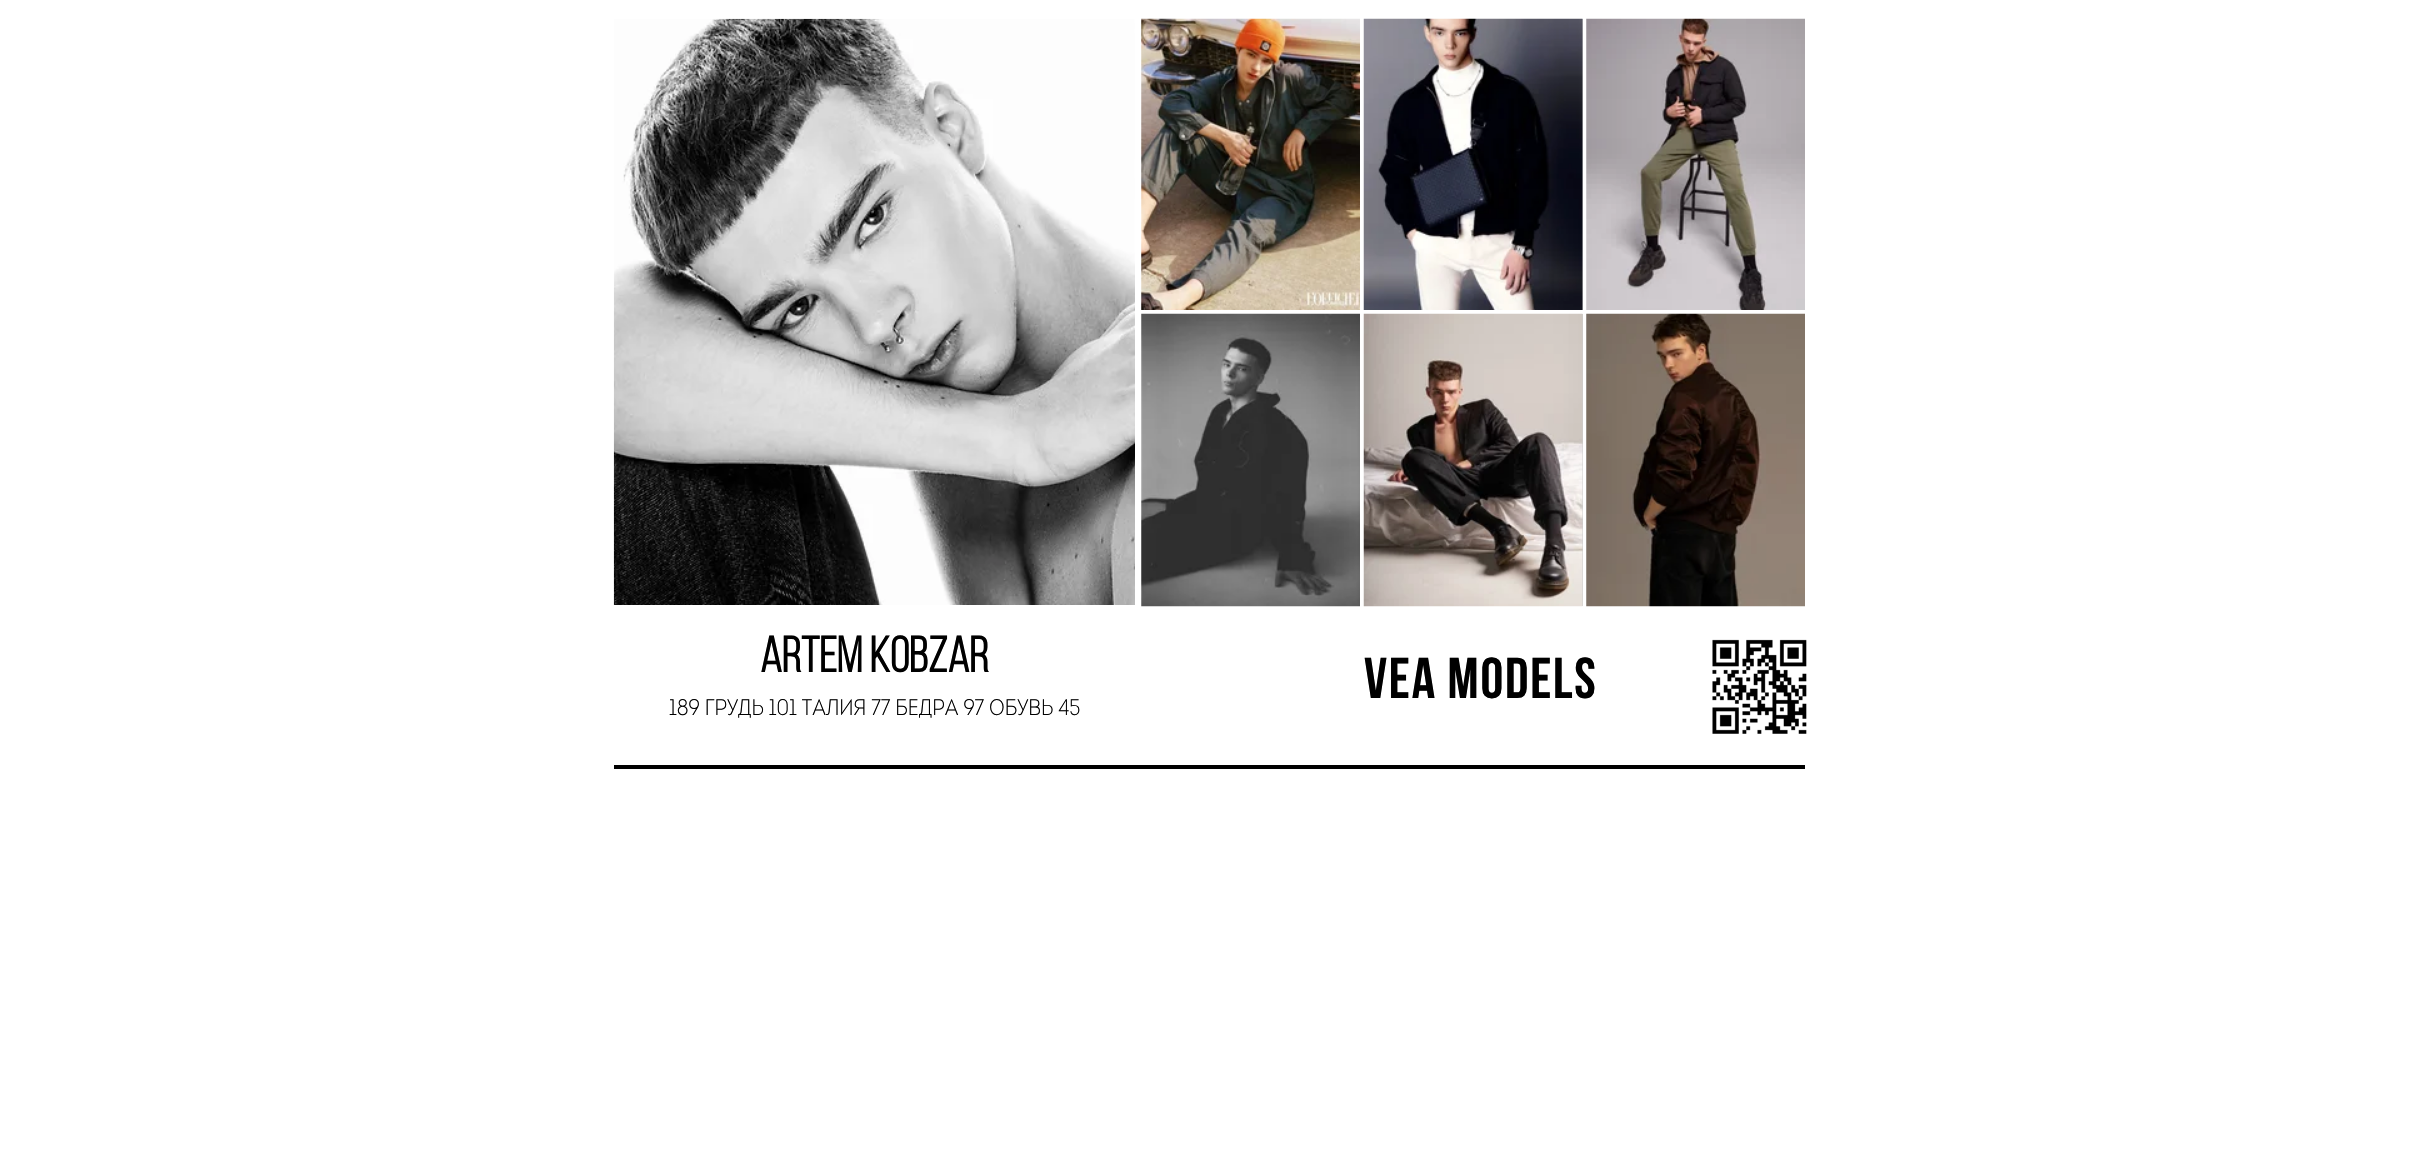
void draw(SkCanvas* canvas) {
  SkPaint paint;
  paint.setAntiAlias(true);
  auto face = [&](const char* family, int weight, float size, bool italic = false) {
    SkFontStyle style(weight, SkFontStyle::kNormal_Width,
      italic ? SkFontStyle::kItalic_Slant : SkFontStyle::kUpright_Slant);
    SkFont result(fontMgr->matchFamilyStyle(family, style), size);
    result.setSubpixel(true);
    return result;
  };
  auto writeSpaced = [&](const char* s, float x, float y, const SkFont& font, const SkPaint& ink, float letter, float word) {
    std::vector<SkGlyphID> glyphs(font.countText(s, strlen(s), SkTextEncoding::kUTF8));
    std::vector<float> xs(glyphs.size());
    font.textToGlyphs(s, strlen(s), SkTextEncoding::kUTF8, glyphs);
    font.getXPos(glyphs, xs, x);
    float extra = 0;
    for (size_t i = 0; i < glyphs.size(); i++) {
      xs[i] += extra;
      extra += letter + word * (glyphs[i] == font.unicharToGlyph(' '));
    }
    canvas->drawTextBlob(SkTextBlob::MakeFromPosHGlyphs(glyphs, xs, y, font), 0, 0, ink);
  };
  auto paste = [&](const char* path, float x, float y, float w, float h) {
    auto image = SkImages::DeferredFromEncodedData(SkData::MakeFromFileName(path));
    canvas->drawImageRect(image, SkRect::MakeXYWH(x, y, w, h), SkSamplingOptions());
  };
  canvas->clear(0xffffffff);
  paste("img/1.png", 613, 18, 522, 587);
  paste("img/2.png", 1141, 18, 219, 292);
  paint.setColor(0xffcccccc);
  canvas->drawRect(SkRect::MakeXYWH(1582, 19, 1, 291), paint);
  paste("img/3.png", 1363, 18, 220, 292);
  paste("img/4.png", 1586, 18, 219, 292);
  paste("img/5.png", 1141, 313, 219, 294);
  canvas->drawRect(SkRect::MakeXYWH(1582, 314, 1, 292), paint);
  paste("img/6.png", 1363, 313, 220, 294);
  paste("img/7.png", 1586, 313, 219, 294);
  paste("img/8.png", 1712, 639, 95, 95);
  paint.setColor(0xff000000);
  canvas->drawRect(SkRect::MakeXYWH(614, 765, 1191, 4), paint);
  auto f0 = face("Bebas Neue", 700, 50);
  canvas->drawString("Artem Kobzar", 760, 672, f0, paint);
  auto f1 = face("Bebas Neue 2", 700, 57.5f);
  writeSpaced("VEA MODELS", 1364, 698, f1, paint, 1.75f, 0);
  auto f2 = face("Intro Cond", 300, 22.5f);
  canvas->drawString("189 ГРУДЬ 101 ТАЛИЯ 77 БЕДРА 97 ОБУВЬ 45", 669, 715, f2, paint);
}
